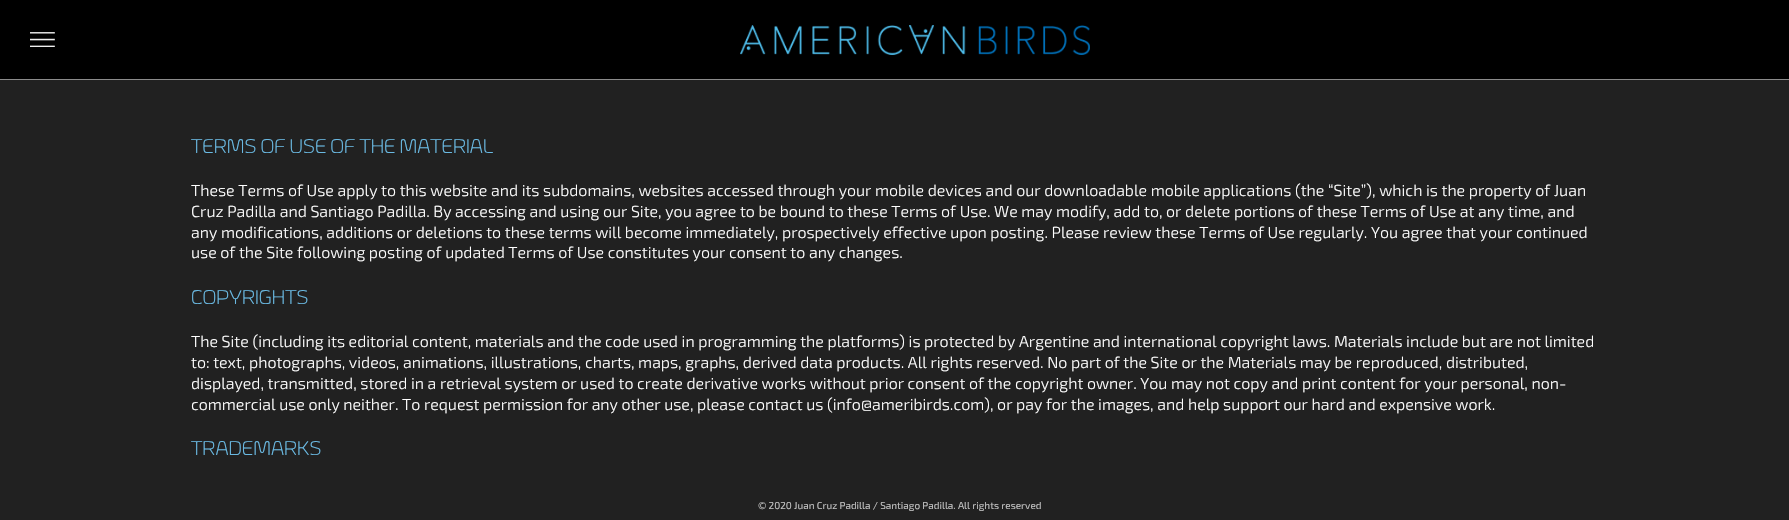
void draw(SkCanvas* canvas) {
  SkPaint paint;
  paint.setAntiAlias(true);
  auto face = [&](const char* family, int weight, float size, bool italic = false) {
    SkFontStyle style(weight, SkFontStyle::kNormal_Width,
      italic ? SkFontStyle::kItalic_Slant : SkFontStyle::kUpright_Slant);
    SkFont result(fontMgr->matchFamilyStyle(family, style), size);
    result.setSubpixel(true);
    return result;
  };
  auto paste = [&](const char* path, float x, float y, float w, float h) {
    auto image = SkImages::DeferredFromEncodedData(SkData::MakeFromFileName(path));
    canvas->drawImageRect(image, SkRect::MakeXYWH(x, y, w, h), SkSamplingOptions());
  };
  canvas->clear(0xff212121);
  paint.setColor(0xff000000);
  canvas->drawRect(SkRect::MakeXYWH(0, 0, 1789, 79), paint);
  paint.setColor(0xff8b8b8b);
  canvas->drawRect(SkRect::MakeXYWH(0, 79, 1789, 1), paint);
  paste("img/1.png", 30, 32, 25, 15);
  paste("img/2.png", 740, 25, 350, 30);
  auto f0 = face("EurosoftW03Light", 300, 20);
  paint.setColor(0xff6ab9e2);
  canvas->drawString("TERMS OF USE OF THE MATERIAL", 191, 153, f0, paint);
  auto f1 = face("Exo 2", 300, 16);
  paint.setColor(0xffffffff);
  {
    const struct { const char* s; float x, y; } items[] = {
      {"These Terms of Use apply to this website and its subdomains, websites accessed through your mobile devices and our downloadable mobile applications (the “Site”), which is the property of Juan", 191, 196},
      {"Cruz Padilla and Santiago Padilla. By accessing and using our Site, you agree to be bound to these Terms of Use. We may modify, add to, or delete portions of these Terms of Use at any time, and", 191, 217},
      {"any modifications, additions or deletions to these terms will become immediately, prospectively effective upon posting. Please review these Terms of Use regularly. You agree that your continued", 191, 238},
      {"use of the Site following posting of updated Terms of Use constitutes your consent to any changes.", 191, 258},
    };
    for (auto [s, x, y] : items) {
      canvas->drawString(s, x, y, f1, paint);
    }
  }
  paint.setColor(0xff6ab9e2);
  canvas->drawString("COPYRIGHTS", 191, 304, f0, paint);
  paint.setColor(0xffffffff);
  {
    const struct { const char* s; float x, y; } items[] = {
      {"The Site (including its editorial content, materials and the code used in programming the platforms) is protected by Argentine and international copyright laws. Materials include but are not limited", 191, 347},
      {"to: text, photographs, videos, animations, illustrations, charts, maps, graphs, derived data products. All rights reserved. No part of the Site or the Materials may be reproduced, distributed,", 191, 368},
      {"displayed, transmitted, stored in a retrieval system or used to create derivative works without prior consent of the copyright owner. You may not copy and print content for your personal, non-", 191, 389},
      {"commercial use only neither. To request permission for any other use, please contact us (info@ameribirds.com), or pay for the images, and help support our hard and expensive work.", 191, 410},
    };
    for (auto [s, x, y] : items) {
      canvas->drawString(s, x, y, f1, paint);
    }
  }
  paint.setColor(0xff6ab9e2);
  canvas->drawString("TRADEMARKS", 191, 455, f0, paint);
  auto f2 = face("Exo 2", 400, 10);
  paint.setColor(0xffc1c1c1);
  canvas->drawString("© 2020 Juan Cruz Padilla / Santiago Padilla. All rights reserved", 758, 509, f2, paint);
}
